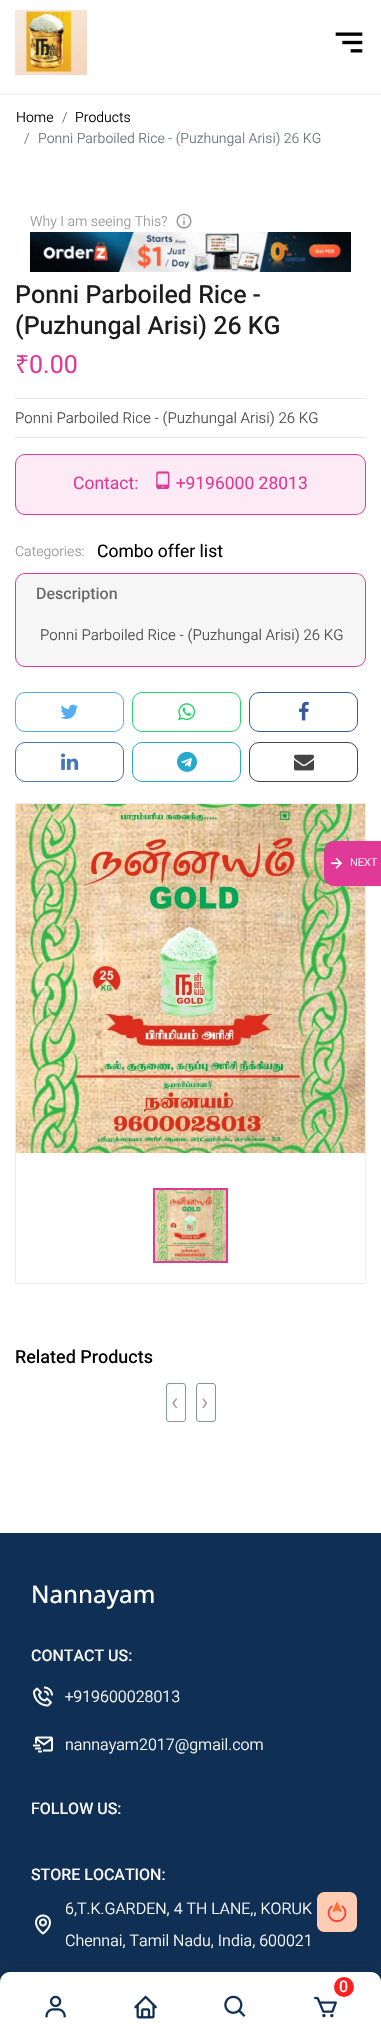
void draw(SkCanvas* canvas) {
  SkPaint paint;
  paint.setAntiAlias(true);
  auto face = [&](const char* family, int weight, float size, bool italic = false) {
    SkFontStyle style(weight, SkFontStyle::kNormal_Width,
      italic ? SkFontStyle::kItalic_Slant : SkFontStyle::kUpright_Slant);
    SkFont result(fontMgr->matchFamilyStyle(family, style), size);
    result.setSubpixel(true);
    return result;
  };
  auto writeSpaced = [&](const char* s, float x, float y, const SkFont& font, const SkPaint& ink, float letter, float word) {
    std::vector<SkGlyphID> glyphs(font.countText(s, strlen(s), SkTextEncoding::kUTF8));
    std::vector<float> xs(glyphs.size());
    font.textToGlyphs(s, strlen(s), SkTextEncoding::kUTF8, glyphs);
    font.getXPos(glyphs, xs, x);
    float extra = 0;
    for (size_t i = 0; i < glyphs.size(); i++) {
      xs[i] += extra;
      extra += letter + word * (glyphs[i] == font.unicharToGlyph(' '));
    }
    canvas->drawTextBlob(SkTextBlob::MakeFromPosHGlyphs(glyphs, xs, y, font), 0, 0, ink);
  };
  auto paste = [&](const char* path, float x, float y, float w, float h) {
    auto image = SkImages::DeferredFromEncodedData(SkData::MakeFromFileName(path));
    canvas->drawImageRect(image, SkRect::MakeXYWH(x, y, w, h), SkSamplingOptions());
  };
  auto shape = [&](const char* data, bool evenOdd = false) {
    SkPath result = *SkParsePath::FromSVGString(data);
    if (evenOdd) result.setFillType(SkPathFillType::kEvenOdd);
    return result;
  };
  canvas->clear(0xffffffff);
  paint.setColor(0xffeeeeee);
  canvas->drawRect(SkRect::MakeXYWH(0, 94, 381, 1), paint);
  paste("img/1.png", 15, 10, 72, 65);
  paste("img/2.png", 335, 32, 28, 21);
  paste("img/3.png", 176, 213, 16, 16);
  paste("img/4.png", 30, 232, 321, 40);
  paint.setColor(0xffe6e6e6);
  canvas->drawRect(SkRect::MakeXYWH(15, 398, 351, 1), paint);
  canvas->drawRect(SkRect::MakeXYWH(15, 437, 351, 1), paint);
  paint.setColor(0xfffcebf5);
  canvas->drawRoundRect(SkRect::MakeXYWH(15.5f, 454.5f, 350, 60), 9.5f, 9.5f, paint);
  paint.setStroke(true);
  paint.setStrokeWidth(1);
  paint.setColor(0xffe03997);
  canvas->drawRoundRect(SkRect::MakeXYWH(15.5f, 454.5f, 350, 60), 9.5f, 9.5f, paint);
  paste("img/5.png", 156, 471, 14, 18);
  paint.setStroke(false);
  paint.setColor(0xfff6f6f6);
  canvas->drawRoundRect(SkRect::MakeXYWH(15.5f, 573.5f, 350, 93), 9.5f, 9.5f, paint);
  paint.setStroke(true);
  paint.setColor(0xffe03997);
  canvas->drawRoundRect(SkRect::MakeXYWH(15.5f, 573.5f, 350, 93), 9.5f, 9.5f, paint);
  paint.setStroke(false);
  paint.setColor(0xfff6f6f6);
  canvas->drawRoundRect(SkRect::MakeXYWH(16, 574, 349, 42), 10, 10, paint);
  paint.setStroke(true);
  paint.setColor(0xff55acee);
  canvas->drawRoundRect(SkRect::MakeXYWH(15.5f, 692.5f, 108, 39), 9.5f, 9.5f, paint);
  paste("img/6.png", 60, 704, 18, 15);
  paint.setColor(0xff25d366);
  canvas->drawRoundRect(SkRect::MakeXYWH(132.5f, 692.5f, 108, 39), 9.5f, 9.5f, paint);
  paste("img/7.png", 178, 703, 18, 18);
  paint.setColor(0xff3b5998);
  canvas->drawRoundRect(SkRect::MakeXYWH(249.5f, 692.5f, 108, 39), 9.5f, 9.5f, paint);
  paste("img/8.png", 299, 701, 10, 20);
  paint.setColor(0xff4875b4);
  canvas->drawRoundRect(SkRect::MakeXYWH(15.5f, 742.5f, 108, 39), 9.5f, 9.5f, paint);
  paste("img/9.png", 61, 753, 18, 17);
  paint.setColor(0xff27a8cf);
  canvas->drawRoundRect(SkRect::MakeXYWH(132.5f, 742.5f, 108, 39), 9.5f, 9.5f, paint);
  paste("img/10.png", 177, 751, 20, 21);
  paint.setColor(0xff444444);
  canvas->drawRoundRect(SkRect::MakeXYWH(249.5f, 742.5f, 108, 39), 9.5f, 9.5f, paint);
  paste("img/11.png", 294, 754, 20, 17);
  paint.setColor(0xffeeeeee);
  canvas->drawRect(SkRect::MakeXYWH(15.5f, 803.5f, 350, 480), paint);
  paste("img/12.png", 16, 804, 349, 349);
  paint.setStrokeWidth(2);
  paint.setColor(0xffe03997);
  canvas->drawRect(SkRect::MakeXYWH(154, 1189, 73, 73), paint);
  paste("img/13.png", 155, 1190, 71, 71);
  paint.setStrokeWidth(1);
  paint.setColor(0xff869791);
  canvas->drawRoundRect(SkRect::MakeXYWH(166.5f, 1383.5f, 19, 38), 2.5f, 2.5f, paint);
  canvas->drawRoundRect(SkRect::MakeXYWH(196.5f, 1383.5f, 19, 38), 2.5f, 2.5f, paint);
  paint.setStroke(false);
  paint.setColor(0xffe03997);
  canvas->drawPath(shape("M334 841H381V886H334C328.5 886 324 881.5 324 876V851C324 845.5 328.5 841 334 841Z"), paint);
  paste("img/14.png", 331, 857, 12, 12);
  paint.setColor(0xff102f54);
  canvas->drawRect(SkRect::MakeXYWH(0, 1533, 381, 449), paint);
  paste("img/15.png", 33, 1686, 20, 21);
  paste("img/16.png", 33, 1736, 20, 17);
  paste("img/17.png", 35, 1914, 16, 21);
  paste("img/18.png", 317, 1892, 40, 40);
  paint.setColor(0x260e3e3a);
  paint.setMaskFilter(SkMaskFilter::MakeBlur(kNormal_SkBlurStyle, 6));
  canvas->drawRoundRect(SkRect::MakeXYWH(0, 1971, 381, 70), 10, 10, paint);
  paint.setMaskFilter(nullptr);
  paint.setColor(0xffffffff);
  canvas->drawPath(shape("M10 1972H371C376.5 1972 381 1976.5 381 1982V2042H0V1982C0 1976.5 4.5 1972 10 1972Z"), paint);
  paste("img/19.png", 314, 1996, 23, 22);
  paint.setColor(0xffff1f1f);
  canvas->drawCircle(344, 1987, 10, paint);
  paste("img/20.png", 45, 1995, 21, 23);
  paste("img/21.png", 134, 1995, 23, 24);
  paste("img/22.png", 224, 1995, 22, 22);
  auto f0 = face("Heebo", 300, 14);
  paint.setColor(0xff000000);
  canvas->drawString("Home", 16, 122, f0, paint);
  paint.setColor(0xff6c757d);
  canvas->drawString("/", 62, 122, f0, paint);
  paint.setColor(0xff000000);
  canvas->drawString("Products", 75, 122, f0, paint);
  paint.setColor(0xff6c757d);
  canvas->drawString("/", 24, 143, f0, paint);
  canvas->drawString("Ponni Parboiled Rice - (Puzhungal Arisi) 26 KG", 38, 143, f0, paint);
  paint.setColor(0xff999999);
  canvas->drawString("Why I am seeing This?", 30, 226, f0, paint);
  auto f1 = face("Heebo", 500, 25);
  paint.setColor(0xff1e1d1d);
  canvas->drawString("Ponni Parboiled Rice -", 15, 303, f1, paint);
  canvas->drawString("(Puzhungal Arisi) 26 KG", 15, 334, f1, paint);
  auto f2 = face("Noto Sans", 400, 25);
  paint.setColor(0xffe03997);
  canvas->drawString("₹", 15, 373, f2, paint);
  auto f3 = face("Heebo", 400, 25);
  canvas->drawString("0.00", 29, 373, f3, paint);
  auto f4 = face("Heebo", 300, 15);
  paint.setColor(0xff4d4d4d);
  canvas->drawString("Ponni Parboiled Rice - (Puzhungal Arisi) 26 KG", 15, 423, f4, paint);
  auto f5 = face("Heebo", 400, 17.5f);
  paint.setColor(0xffe03997);
  canvas->drawString("Contact:", 73, 489, f5, paint);
  canvas->drawString("+9196000 28013", 176, 489, f5, paint);
  paint.setColor(0xff999999);
  canvas->drawString("Categories:", 15, 556, f0, paint);
  paint.setColor(0xff000000);
  canvas->drawString("Combo offer list", 97, 557, f5, paint);
  auto f6 = face("Heebo", 500, 16);
  paint.setColor(0xff666666);
  canvas->drawString("Description", 36, 599, f6, paint);
  paint.setColor(0xff4d4d4d);
  canvas->drawString("Ponni Parboiled Rice - (Puzhungal Arisi) 26 KG", 40, 640, f4, paint);
  auto f7 = face("Heebo", 500, 18);
  paint.setColor(0xff000000);
  canvas->drawString("Related Products", 15, 1363, f7, paint);
  auto f8 = face("Heebo", 300, 25);
  paint.setColor(0xff999999);
  writeSpaced("‹", 171, 1410, f8, paint, 1, 0);
  writeSpaced("›", 201, 1410, f8, paint, 1, 0);
  auto f9 = face("Heebo", 300, 11);
  paint.setColor(0xffffffff);
  canvas->drawString("NEXT", 350, 866, f9, paint);
  auto f10 = face("Open Sans", 500, 24);
  canvas->drawString("Nannayam", 31, 1603, f10, paint);
  canvas->drawString("CONTACT US:", 31, 1661, f6, paint);
  auto f11 = face("Heebo", 300, 16);
  canvas->drawString("+919600028013", 65, 1702, f11, paint);
  canvas->drawString("nannayam2017@gmail.com", 65, 1750, f11, paint);
  canvas->drawString("FOLLOW US:", 31, 1814, f6, paint);
  canvas->drawString("STORE LOCATION:", 31, 1880, f6, paint);
  canvas->drawString("6,T.K.GARDEN, 4 TH LANE,, KORUK", 65, 1914, f11, paint);
  canvas->drawString("Chennai, Tamil Nadu, India, 600021", 65, 1946, f11, paint);
  canvas->drawString("0", 339, 1992, f6, paint);
}
